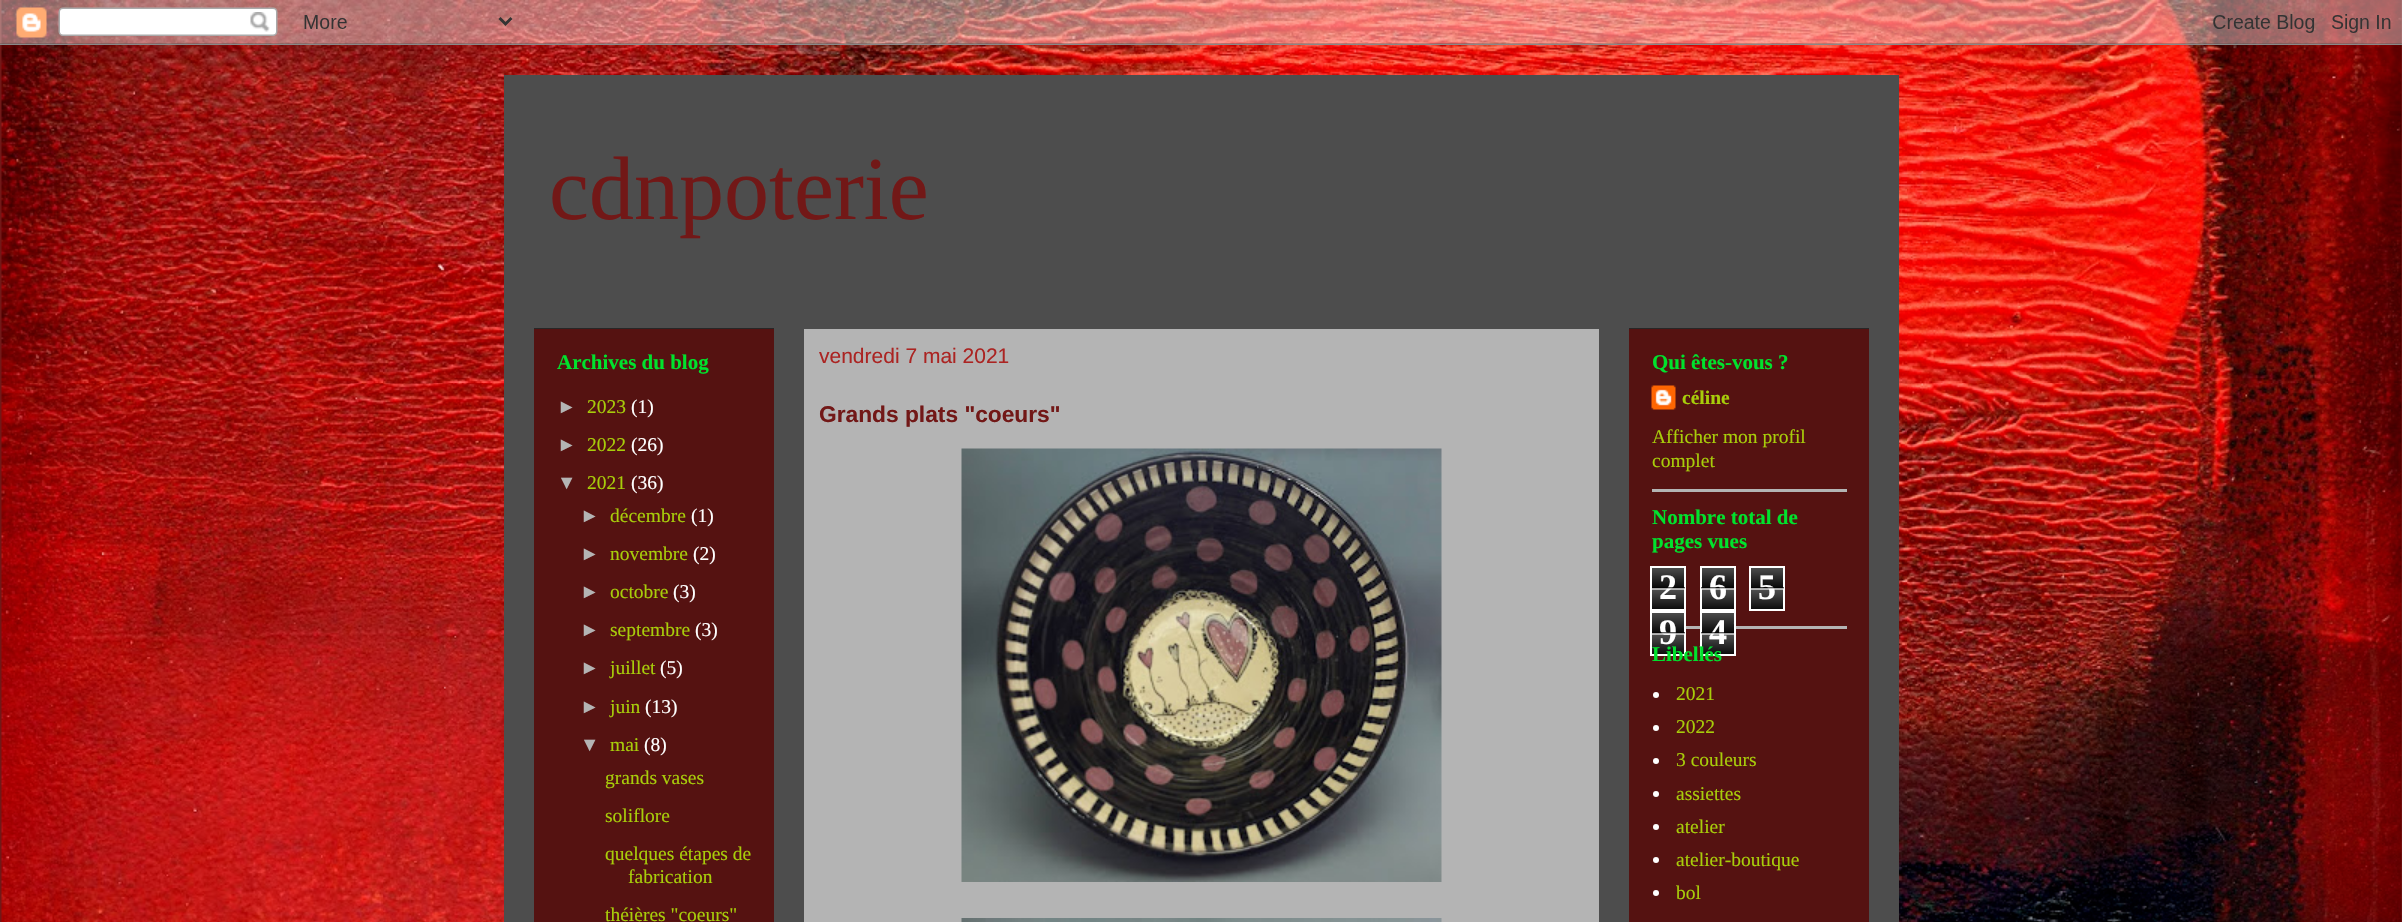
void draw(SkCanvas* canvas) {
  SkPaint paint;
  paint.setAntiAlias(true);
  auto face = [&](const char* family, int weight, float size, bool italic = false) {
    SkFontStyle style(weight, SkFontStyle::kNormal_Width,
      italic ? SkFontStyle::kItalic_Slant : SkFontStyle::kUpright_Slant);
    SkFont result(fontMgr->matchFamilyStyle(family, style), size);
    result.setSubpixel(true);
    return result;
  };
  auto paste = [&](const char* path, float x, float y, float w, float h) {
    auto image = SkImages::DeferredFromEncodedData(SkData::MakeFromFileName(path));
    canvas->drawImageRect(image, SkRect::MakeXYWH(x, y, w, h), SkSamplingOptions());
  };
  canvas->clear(0xff721817);
  paste("img/1.png", 1, 0, 2401, 922);
  paste("img/2.png", 0, 0, 2402, 45);
  {
    const struct { float x, y, w, h; SkColor color; } items[] = {
      {504, 75, 1395, 847, 0xff4d4d4d},
      {534, 329, 240, 593, 0xffab2422},
      {534, 328, 240, 594, 0x80000000},
      {1629, 329, 240, 593, 0xffab2422},
      {1629, 328, 240, 594, 0x80000000},
      {804, 329, 795, 593, 0xffb4b4b4},
    };
    for (auto [x, y, w, h, color] : items) {
      paint.setColor(color);
      canvas->drawRect(SkRect::MakeXYWH(x, y, w, h), paint);
    }
  }
  paste("img/3.png", 961, 448, 481, 434);
  paste("img/4.png", 961, 918, 481, 4);
  canvas->drawRect(SkRect::MakeXYWH(1652, 489, 195, 3), paint);
  paste("img/5.png", 1651, 385, 25, 25);
  canvas->drawRect(SkRect::MakeXYWH(1686, 626, 161, 3), paint);
  paste("img/6.png", 1652, 568, 32, 41);
  paint.setStroke(true);
  paint.setStrokeWidth(2);
  paint.setColor(0xffffffff);
  canvas->drawRect(SkRect::MakeXYWH(1651, 567, 34, 43), paint);
  paste("img/7.png", 1702, 568, 32, 41);
  canvas->drawRect(SkRect::MakeXYWH(1701, 567, 34, 43), paint);
  paste("img/6.png", 1751, 568, 32, 41);
  canvas->drawRect(SkRect::MakeXYWH(1750, 567, 34, 43), paint);
  paste("img/6.png", 1652, 613, 32, 41);
  canvas->drawRect(SkRect::MakeXYWH(1651, 612, 34, 43), paint);
  paste("img/7.png", 1702, 613, 32, 41);
  canvas->drawRect(SkRect::MakeXYWH(1701, 612, 34, 43), paint);
  paint.setStroke(false);
  canvas->drawCircle(1656, 695, 3, paint);
  canvas->drawCircle(1656, 728, 3, paint);
  canvas->drawCircle(1656, 761, 3, paint);
  canvas->drawCircle(1656, 794, 3, paint);
  canvas->drawCircle(1656, 827, 3, paint);
  canvas->drawCircle(1656, 860, 3, paint);
  canvas->drawCircle(1656, 893, 3, paint);
  auto f0 = face("Liberation Serif", 400, 90);
  paint.setColor(0xff721817);
  canvas->drawString("cdnpoterie", 549, 219, f0, paint);
  auto f1 = face("Liberation Serif", 700, 21);
  paint.setColor(0xff00e22d);
  canvas->drawString("Archives du blog", 557, 369, f1, paint);
  auto f2 = face("Liberation Sans", 400, 19.5f);
  paint.setColor(0xffb4b4b4);
  canvas->drawString("►", 557, 413, f2, paint);
  auto f3 = face("Liberation Serif", 400, 19.5f);
  paint.setColor(0xffa8cd0a);
  canvas->drawString("2023", 587, 413, f3, paint);
  paint.setColor(0xffffffff);
  canvas->drawString("(1)", 631, 413, f3, paint);
  paint.setColor(0xffb4b4b4);
  canvas->drawString("►", 557, 451, f2, paint);
  paint.setColor(0xffa8cd0a);
  canvas->drawString("2022", 587, 451, f3, paint);
  paint.setColor(0xffffffff);
  canvas->drawString("(26)", 631, 451, f3, paint);
  paint.setColor(0xffb4b4b4);
  canvas->drawString("▼", 557, 489, f2, paint);
  paint.setColor(0xffa8cd0a);
  canvas->drawString("2021", 587, 489, f3, paint);
  paint.setColor(0xffffffff);
  canvas->drawString("(36)", 631, 489, f3, paint);
  paint.setColor(0xffb4b4b4);
  canvas->drawString("►", 580, 522, f2, paint);
  paint.setColor(0xffa8cd0a);
  canvas->drawString("décembre", 610, 522, f3, paint);
  paint.setColor(0xffffffff);
  canvas->drawString("(1)", 691, 522, f3, paint);
  paint.setColor(0xffb4b4b4);
  canvas->drawString("►", 580, 560, f2, paint);
  paint.setColor(0xffa8cd0a);
  canvas->drawString("novembre", 610, 560, f3, paint);
  paint.setColor(0xffffffff);
  canvas->drawString("(2)", 693, 560, f3, paint);
  paint.setColor(0xffb4b4b4);
  canvas->drawString("►", 580, 598, f2, paint);
  paint.setColor(0xffa8cd0a);
  canvas->drawString("octobre", 610, 598, f3, paint);
  paint.setColor(0xffffffff);
  canvas->drawString("(3)", 673, 598, f3, paint);
  paint.setColor(0xffb4b4b4);
  canvas->drawString("►", 580, 636, f2, paint);
  paint.setColor(0xffa8cd0a);
  canvas->drawString("septembre", 610, 636, f3, paint);
  paint.setColor(0xffffffff);
  canvas->drawString("(3)", 695, 636, f3, paint);
  paint.setColor(0xffb4b4b4);
  canvas->drawString("►", 580, 674, f2, paint);
  paint.setColor(0xffa8cd0a);
  canvas->drawString("juillet", 610, 674, f3, paint);
  paint.setColor(0xffffffff);
  canvas->drawString("(5)", 660, 674, f3, paint);
  paint.setColor(0xffb4b4b4);
  canvas->drawString("►", 580, 713, f2, paint);
  paint.setColor(0xffa8cd0a);
  canvas->drawString("juin", 610, 713, f3, paint);
  paint.setColor(0xffffffff);
  canvas->drawString("(13)", 645, 713, f3, paint);
  paint.setColor(0xffb4b4b4);
  canvas->drawString("▼", 580, 751, f2, paint);
  paint.setColor(0xffa8cd0a);
  canvas->drawString("mai", 610, 751, f3, paint);
  paint.setColor(0xffffffff);
  canvas->drawString("(8)", 644, 751, f3, paint);
  paint.setColor(0xffa8cd0a);
  {
    const struct { const char* s; float x, y; } items[] = {
      {"grands vases", 605, 784},
      {"soliflore", 605, 822},
      {"quelques étapes de", 605, 860},
      {"fabrication", 628, 883},
      {"théières \"coeurs\"", 605, 921},
    };
    for (auto [s, x, y] : items) {
      canvas->drawString(s, x, y, f3, paint);
    }
  }
  auto f4 = face("Liberation Sans", 400, 21);
  paint.setColor(0xffab2422);
  canvas->drawString("vendredi 7 mai 2021", 819, 363, f4, paint);
  auto f5 = face("Liberation Sans", 700, 22.75f);
  paint.setColor(0xff721817);
  canvas->drawString("Grands plats \"coeurs\"", 819, 422, f5, paint);
  paint.setColor(0xff00e22d);
  canvas->drawString("Qui êtes-vous ?", 1652, 369, f1, paint);
  auto f6 = face("Liberation Serif", 700, 19.5f);
  paint.setColor(0xffa8cd0a);
  canvas->drawString("céline", 1682, 404, f6, paint);
  canvas->drawString("Afficher mon profil", 1652, 443, f3, paint);
  canvas->drawString("complet", 1652, 467, f3, paint);
  paint.setColor(0xff00e22d);
  canvas->drawString("Nombre total de", 1652, 524, f1, paint);
  canvas->drawString("pages vues", 1652, 548, f1, paint);
  auto f7 = face("Liberation Serif", 700, 36);
  paint.setColor(0xffffffff);
  canvas->drawString("2", 1659, 599, f7, paint);
  paint.setColor(0xa6000000);
  canvas->drawRect(SkRect::MakeXYWH(1652, 587, 33, 2), paint);
  paint.setColor(0xa6ffffff);
  canvas->drawRect(SkRect::MakeXYWH(1652, 588, 33, 2), paint);
  paint.setColor(0xffffffff);
  canvas->drawString("6", 1709, 599, f7, paint);
  paint.setColor(0xa6000000);
  canvas->drawRect(SkRect::MakeXYWH(1701, 587, 33, 2), paint);
  paint.setColor(0xa6ffffff);
  canvas->drawRect(SkRect::MakeXYWH(1701, 588, 33, 2), paint);
  paint.setColor(0xffffffff);
  canvas->drawString("5", 1758, 599, f7, paint);
  paint.setColor(0xa6000000);
  canvas->drawRect(SkRect::MakeXYWH(1751, 587, 33, 2), paint);
  paint.setColor(0xa6ffffff);
  canvas->drawRect(SkRect::MakeXYWH(1751, 588, 33, 2), paint);
  paint.setColor(0xffffffff);
  canvas->drawString("9", 1659, 644, f7, paint);
  paint.setColor(0xa6000000);
  canvas->drawRect(SkRect::MakeXYWH(1652, 632, 33, 2), paint);
  paint.setColor(0xa6ffffff);
  canvas->drawRect(SkRect::MakeXYWH(1652, 633, 33, 2), paint);
  paint.setColor(0xffffffff);
  canvas->drawString("4", 1709, 644, f7, paint);
  paint.setColor(0xa6000000);
  canvas->drawRect(SkRect::MakeXYWH(1701, 632, 33, 2), paint);
  paint.setColor(0xa6ffffff);
  canvas->drawRect(SkRect::MakeXYWH(1701, 633, 33, 2), paint);
  paint.setColor(0xff00e22d);
  canvas->drawString("Libellés", 1652, 661, f1, paint);
  paint.setColor(0xffa8cd0a);
  {
    const struct { const char* s; float x, y; } items[] = {
      {"2021", 1676, 700},
      {"2022", 1676, 733},
      {"3 couleurs", 1676, 766},
      {"assiettes", 1676, 800},
      {"atelier", 1676, 833},
      {"atelier-boutique", 1676, 866},
      {"bol", 1676, 899},
    };
    for (auto [s, x, y] : items) {
      canvas->drawString(s, x, y, f3, paint);
    }
  }
}
